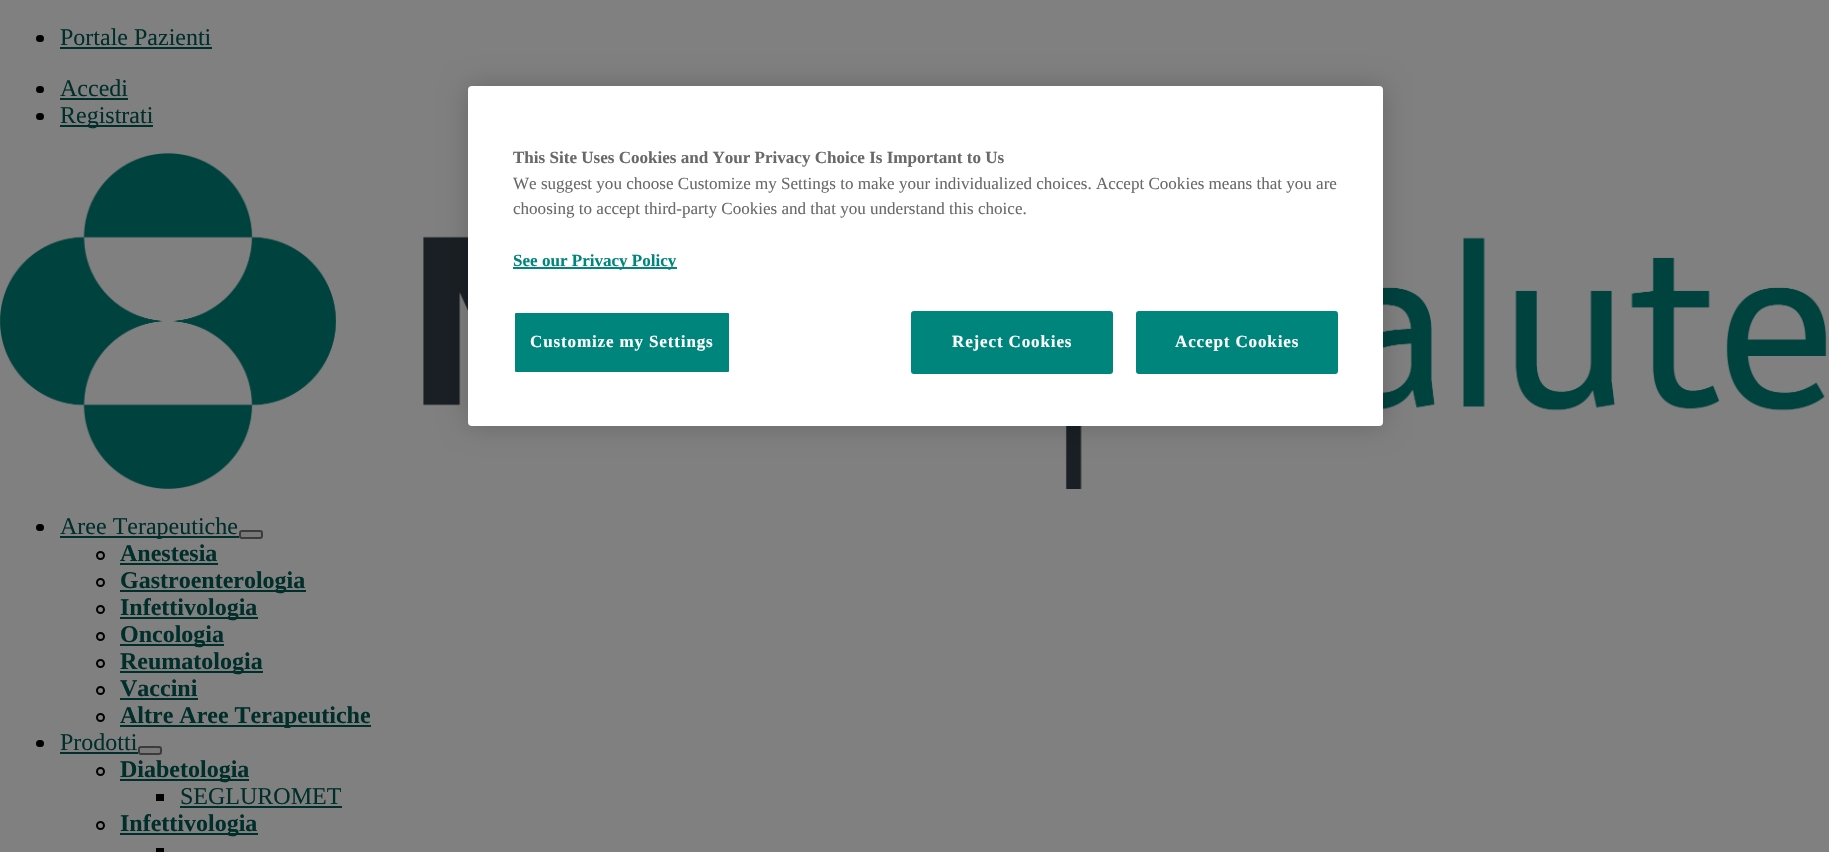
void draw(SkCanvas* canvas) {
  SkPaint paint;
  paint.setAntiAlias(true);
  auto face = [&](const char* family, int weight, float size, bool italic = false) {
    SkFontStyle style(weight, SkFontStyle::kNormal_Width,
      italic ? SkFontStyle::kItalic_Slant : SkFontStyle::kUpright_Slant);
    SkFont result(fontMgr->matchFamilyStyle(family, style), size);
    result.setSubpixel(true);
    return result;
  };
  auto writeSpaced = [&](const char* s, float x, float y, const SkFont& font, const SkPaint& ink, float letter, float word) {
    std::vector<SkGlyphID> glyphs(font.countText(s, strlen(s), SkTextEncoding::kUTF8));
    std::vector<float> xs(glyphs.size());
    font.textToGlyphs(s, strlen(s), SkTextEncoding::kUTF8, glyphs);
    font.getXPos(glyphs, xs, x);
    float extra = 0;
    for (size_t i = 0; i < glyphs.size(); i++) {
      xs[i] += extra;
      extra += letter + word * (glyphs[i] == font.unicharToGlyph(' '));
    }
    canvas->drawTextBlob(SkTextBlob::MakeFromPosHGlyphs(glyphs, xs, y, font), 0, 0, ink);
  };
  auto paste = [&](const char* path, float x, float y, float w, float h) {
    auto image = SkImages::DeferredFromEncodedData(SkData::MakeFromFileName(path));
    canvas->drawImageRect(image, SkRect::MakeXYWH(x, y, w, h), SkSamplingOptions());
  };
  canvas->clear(0xff808080);
  paint.setColor(0xff000000);
  canvas->drawRoundRect(SkRect::MakeXYWH(36, 35, 8, 7), 3.5f, 3.5f, paint);
  paint.setColor(0xff002e2b);
  canvas->drawRect(SkRect::MakeXYWH(60, 47, 152, 2), paint);
  paint.setColor(0xff000000);
  canvas->drawRoundRect(SkRect::MakeXYWH(36, 86, 8, 7), 3.5f, 3.5f, paint);
  paint.setColor(0xff002e2b);
  canvas->drawRect(SkRect::MakeXYWH(60, 98, 68, 2), paint);
  paint.setColor(0xff000000);
  canvas->drawRoundRect(SkRect::MakeXYWH(36, 113, 8, 7), 3.5f, 3.5f, paint);
  paint.setColor(0xff002e2b);
  canvas->drawRect(SkRect::MakeXYWH(60, 125, 93, 2), paint);
  paste("img/1.png", 0, 153, 1827, 336);
  paint.setColor(0xff000000);
  canvas->drawRoundRect(SkRect::MakeXYWH(36, 524, 8, 7), 3.5f, 3.5f, paint);
  paint.setColor(0xff002e2b);
  canvas->drawRect(SkRect::MakeXYWH(60, 536, 179, 2), paint);
  paint.setColor(0xff787878);
  canvas->drawRoundRect(SkRect::MakeXYWH(240, 531, 22, 7), 2, 2, paint);
  paint.setStroke(true);
  paint.setStrokeWidth(2);
  paint.setColor(0xff3b3b3b);
  canvas->drawRoundRect(SkRect::MakeXYWH(240, 531, 22, 7), 2, 2, paint);
  paint.setColor(0xff000000);
  canvas->drawCircle(100.5f, 555.5f, 3.5f, paint);
  paint.setStroke(false);
  paint.setColor(0xff002e2b);
  canvas->drawRect(SkRect::MakeXYWH(120, 563, 98, 2), paint);
  paint.setStroke(true);
  paint.setColor(0xff000000);
  canvas->drawCircle(100.5f, 582.5f, 3.5f, paint);
  paint.setStroke(false);
  paint.setColor(0xff002e2b);
  canvas->drawRect(SkRect::MakeXYWH(120, 590, 186, 2), paint);
  paint.setStroke(true);
  paint.setColor(0xff000000);
  canvas->drawCircle(100.5f, 609.5f, 3.5f, paint);
  paint.setStroke(false);
  paint.setColor(0xff002e2b);
  canvas->drawRect(SkRect::MakeXYWH(120, 617, 138, 2), paint);
  paint.setStroke(true);
  paint.setColor(0xff000000);
  canvas->drawCircle(100.5f, 636.5f, 3.5f, paint);
  paint.setStroke(false);
  paint.setColor(0xff002e2b);
  canvas->drawRect(SkRect::MakeXYWH(120, 644, 104, 2), paint);
  paint.setStroke(true);
  paint.setColor(0xff000000);
  canvas->drawCircle(100.5f, 663.5f, 3.5f, paint);
  paint.setStroke(false);
  paint.setColor(0xff002e2b);
  canvas->drawRect(SkRect::MakeXYWH(120, 671, 143, 2), paint);
  paint.setStroke(true);
  paint.setColor(0xff000000);
  canvas->drawCircle(100.5f, 690.5f, 3.5f, paint);
  paint.setStroke(false);
  paint.setColor(0xff002e2b);
  canvas->drawRect(SkRect::MakeXYWH(120, 698, 78, 2), paint);
  paint.setStroke(true);
  paint.setColor(0xff000000);
  canvas->drawCircle(100.5f, 717.5f, 3.5f, paint);
  paint.setStroke(false);
  paint.setColor(0xff002e2b);
  canvas->drawRect(SkRect::MakeXYWH(120, 725, 251, 2), paint);
  paint.setColor(0xff000000);
  canvas->drawRoundRect(SkRect::MakeXYWH(36, 740, 8, 7), 3.5f, 3.5f, paint);
  paint.setColor(0xff002e2b);
  canvas->drawRect(SkRect::MakeXYWH(60, 752, 78, 2), paint);
  paint.setColor(0xff787878);
  canvas->drawRoundRect(SkRect::MakeXYWH(139, 747, 22, 7), 2, 2, paint);
  paint.setStroke(true);
  paint.setColor(0xff3b3b3b);
  canvas->drawRoundRect(SkRect::MakeXYWH(139, 747, 22, 7), 2, 2, paint);
  paint.setColor(0xff000000);
  canvas->drawCircle(100.5f, 771.5f, 3.5f, paint);
  paint.setStroke(false);
  {
    const struct { float x, y, w, h; SkColor color; } items[] = {
      {120, 779, 129, 2, 0xff002e2b},
      {156, 794, 8, 7, 0xff000000},
      {180, 806, 162, 2, 0xff002e2b},
    };
    for (auto [x, y, w, h, color] : items) {
      paint.setColor(color);
      canvas->drawRect(SkRect::MakeXYWH(x, y, w, h), paint);
    }
  }
  paint.setStroke(true);
  paint.setColor(0xff000000);
  canvas->drawCircle(100.5f, 825.5f, 3.5f, paint);
  paint.setStroke(false);
  paint.setColor(0xff002e2b);
  canvas->drawRect(SkRect::MakeXYWH(120, 833, 138, 2), paint);
  paint.setColor(0xff000000);
  canvas->drawRect(SkRect::MakeXYWH(156, 848, 8, 4), paint);
  paint.setColor(0x33000000);
  paint.setMaskFilter(SkMaskFilter::MakeBlur(kNormal_SkBlurStyle, 13.5f));
  canvas->drawRoundRect(SkRect::MakeXYWH(468, 86, 915, 340), 4, 4, paint);
  paint.setMaskFilter(nullptr);
  paint.setColor(0xffffffff);
  canvas->drawRoundRect(SkRect::MakeXYWH(468, 86, 915, 340), 4, 4, paint);
  paint.setColor(0xff00857c);
  canvas->drawRect(SkRect::MakeXYWH(513, 267, 164, 2), paint);
  canvas->drawRoundRect(SkRect::MakeXYWH(514, 312, 216, 61), 2, 2, paint);
  paint.setStroke(true);
  paint.setColor(0xffffffff);
  canvas->drawRoundRect(SkRect::MakeXYWH(514, 312, 216, 61), 2, 2, paint);
  paint.setStroke(false);
  paint.setColor(0xff00857c);
  canvas->drawRoundRect(SkRect::MakeXYWH(912, 312, 200, 61), 2, 2, paint);
  paint.setStroke(true);
  canvas->drawRoundRect(SkRect::MakeXYWH(912, 312, 200, 61), 2, 2, paint);
  paint.setStroke(false);
  canvas->drawRoundRect(SkRect::MakeXYWH(1137, 312, 200, 61), 2, 2, paint);
  paint.setStroke(true);
  canvas->drawRoundRect(SkRect::MakeXYWH(1137, 312, 200, 61), 2, 2, paint);
  auto f0 = face("Liberation Serif", 400, 24);
  paint.setStroke(false);
  paint.setColor(0xff002e2b);
  {
    const struct { const char* s; float x, y; } items[] = {
      {"Portale Pazienti", 60, 45},
      {"Accedi", 60, 96},
      {"Registrati", 60, 123},
      {"Aree Terapeutiche", 60, 534},
    };
    for (auto [s, x, y] : items) {
      canvas->drawString(s, x, y, f0, paint);
    }
  }
  auto f1 = face("Liberation Serif", 700, 24);
  {
    const struct { const char* s; float x, y; } items[] = {
      {"Anestesia", 120, 561},
      {"Gastroenterologia", 120, 588},
      {"Infettivologia", 120, 615},
      {"Oncologia", 120, 642},
      {"Reumatologia", 120, 669},
      {"Vaccini", 120, 696},
      {"Altre Aree Terapeutiche", 120, 723},
    };
    for (auto [s, x, y] : items) {
      canvas->drawString(s, x, y, f1, paint);
    }
  }
  canvas->drawString("Prodotti", 60, 750, f0, paint);
  canvas->drawString("Diabetologia", 120, 777, f1, paint);
  canvas->drawString("SEGLUROMET", 180, 804, f0, paint);
  canvas->drawString("Infettivologia", 120, 831, f1, paint);
  auto f2 = face("Liberation Serif", 700, 17.05f);
  paint.setColor(0xff696969);
  canvas->drawString("This Site Uses Cookies and Your Privacy Choice Is Important to Us", 513, 163, f2, paint);
  auto f3 = face("Liberation Serif", 400, 17.05f);
  canvas->drawString("We suggest you choose Customize my Settings to make your individualized choices. Accept Cookies means that you are", 513, 189, f3, paint);
  canvas->drawString("choosing to accept third-party Cookies and that you understand this choice.", 513, 214, f3, paint);
  paint.setColor(0xff00857c);
  canvas->drawString("See our Privacy Policy", 513, 266, f2, paint);
  paint.setColor(0xffffffff);
  {
    const struct { const char* s; float x, y; } items[] = {
      {"Customize my Settings", 530, 347},
      {"Reject Cookies", 952, 347},
      {"Accept Cookies", 1175, 347},
    };
    for (auto [s, x, y] : items) {
      writeSpaced(s, x, y, f2, paint, 0.85f, 0);
    }
  }
}
